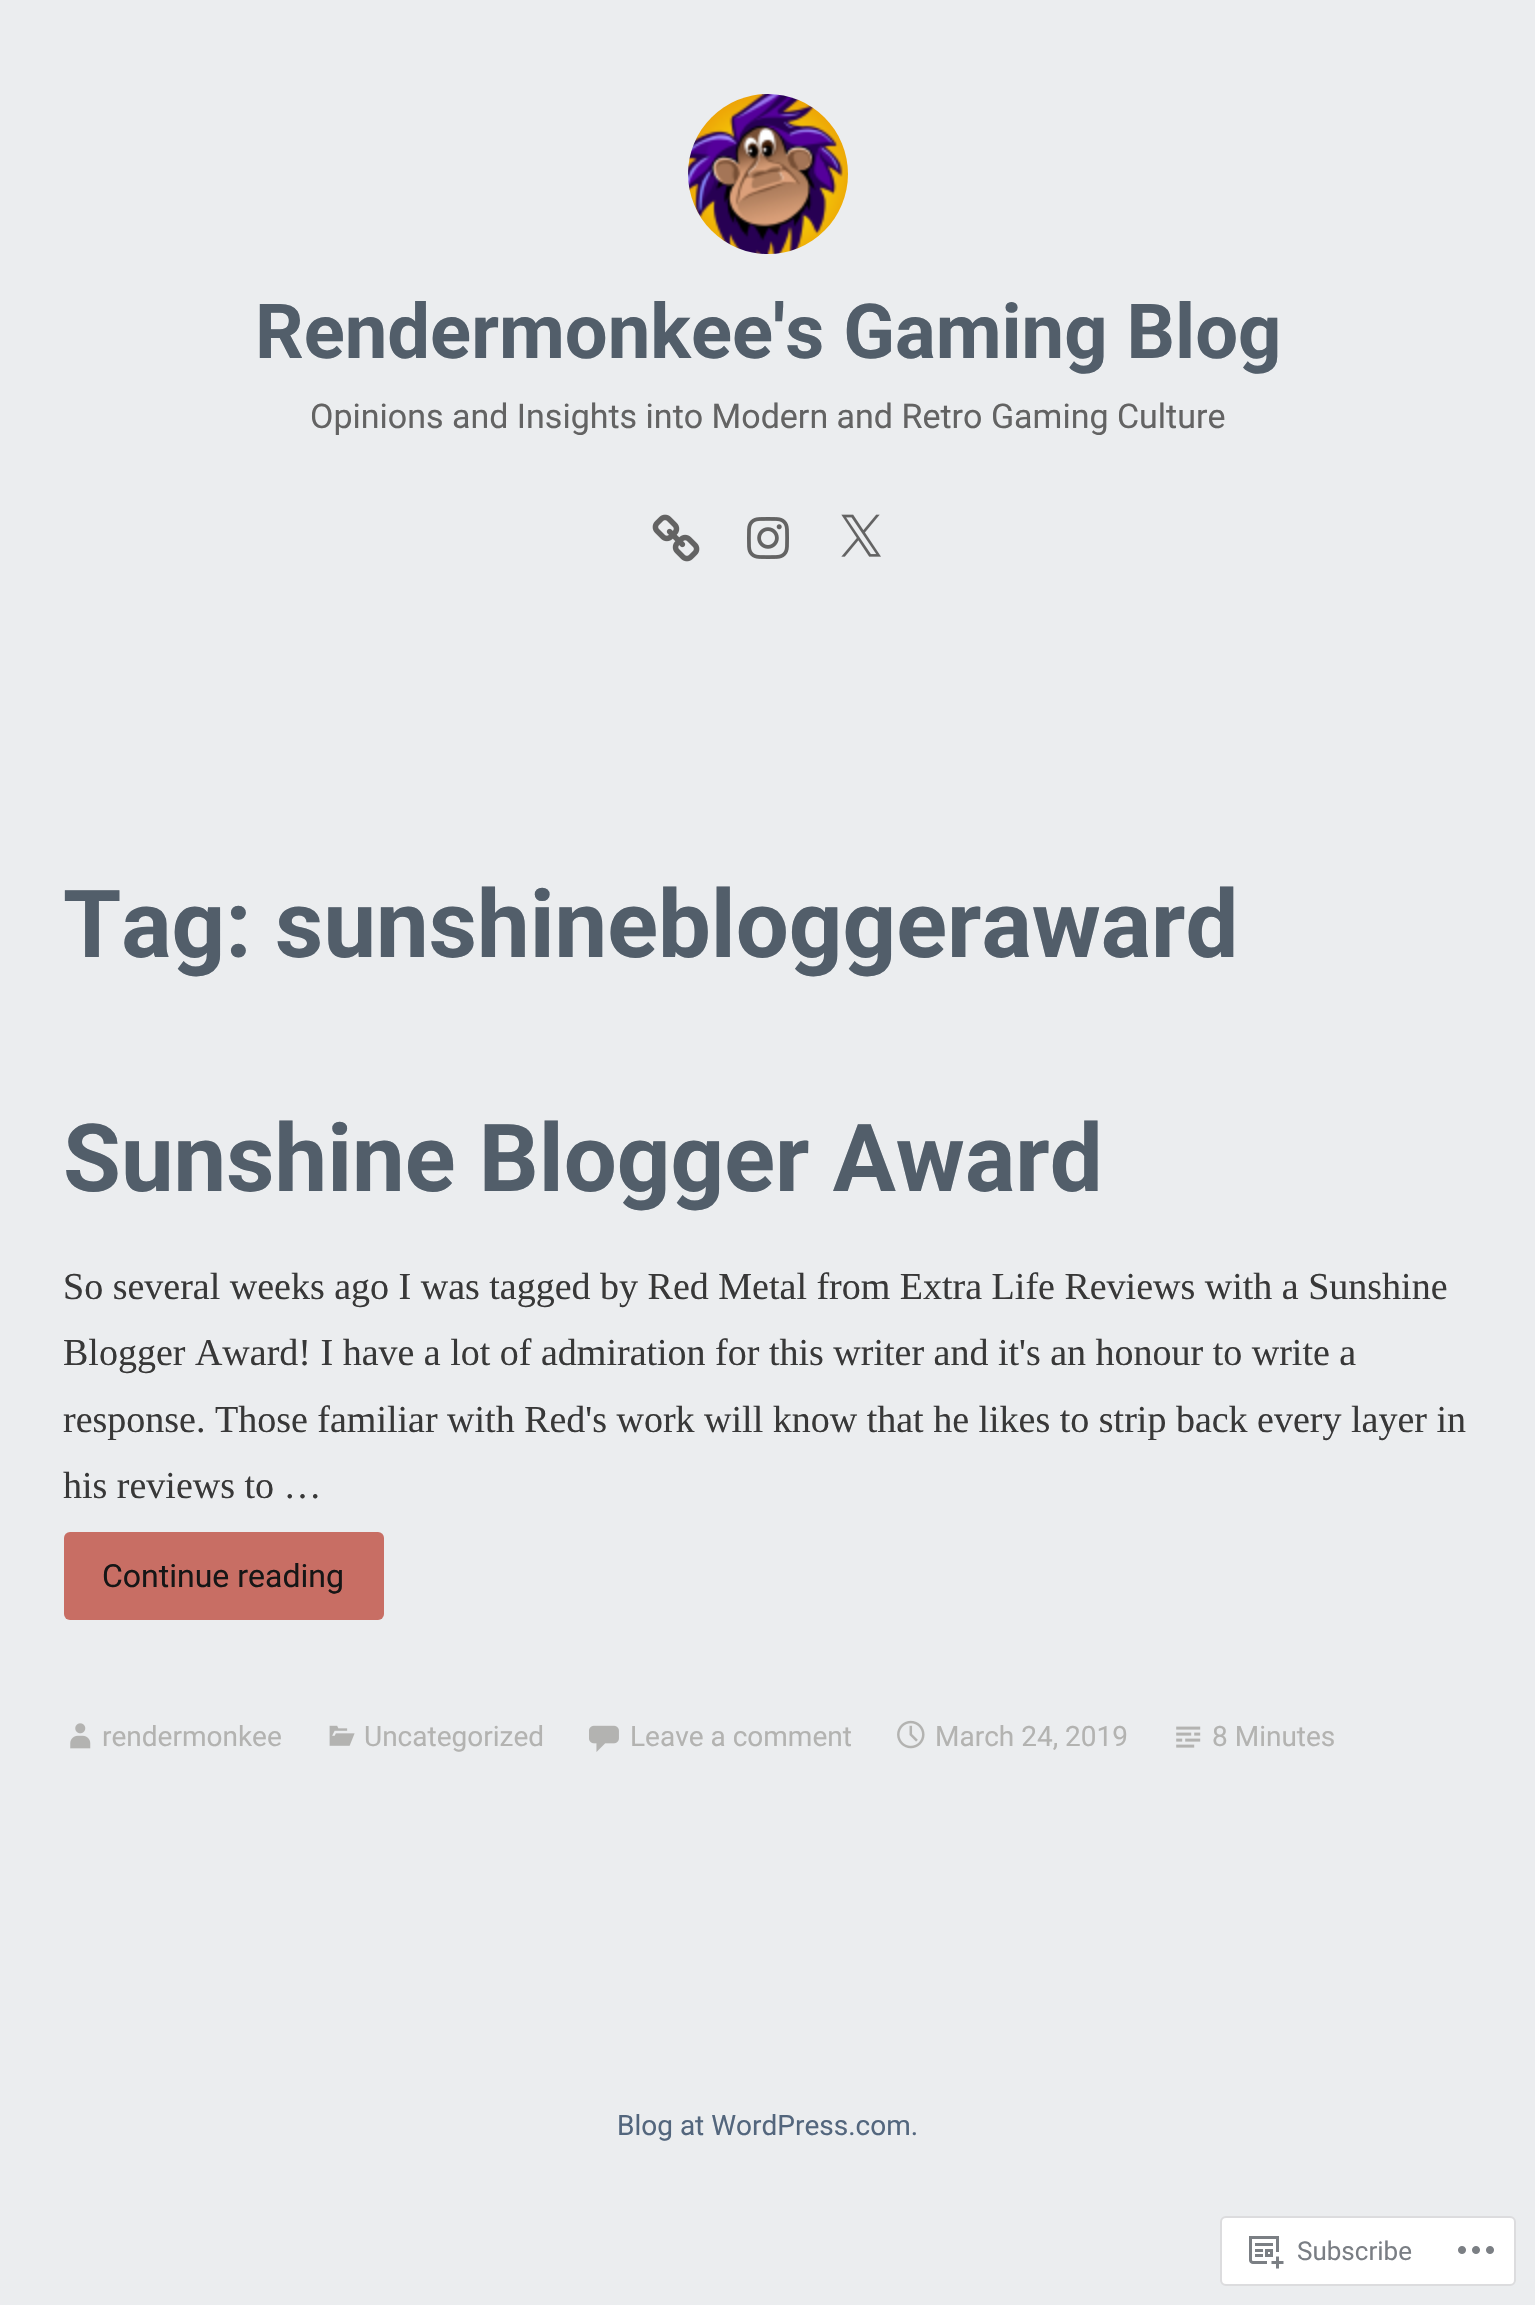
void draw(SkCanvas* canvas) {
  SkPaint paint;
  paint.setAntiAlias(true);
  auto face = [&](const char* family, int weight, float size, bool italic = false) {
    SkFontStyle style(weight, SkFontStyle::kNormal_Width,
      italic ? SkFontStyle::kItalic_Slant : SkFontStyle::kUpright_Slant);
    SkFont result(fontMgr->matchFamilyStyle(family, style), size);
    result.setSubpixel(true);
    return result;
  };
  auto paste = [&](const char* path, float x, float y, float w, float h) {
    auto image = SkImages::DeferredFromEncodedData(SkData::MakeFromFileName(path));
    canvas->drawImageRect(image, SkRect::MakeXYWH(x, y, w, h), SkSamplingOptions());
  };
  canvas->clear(0xffebedef);
  paste("img/1.png", 688, 94, 160, 160);
  paste("img/2.png", 652, 514, 48, 48);
  paste("img/3.png", 747, 517, 42, 42);
  paste("img/4.png", 841, 514, 40, 43);
  paint.setColor(0xffc86e64);
  canvas->drawRoundRect(SkRect::MakeXYWH(64, 1532, 320, 88), 6, 6, paint);
  paste("img/5.png", 70, 1723, 21, 26);
  paste("img/6.png", 329, 1725, 26, 21);
  paste("img/7.png", 589, 1725, 30, 27);
  paste("img/8.png", 897, 1720, 28, 29);
  paste("img/9.png", 1176, 1726, 25, 22);
  paint.setColor(0xffffffff);
  canvas->drawRoundRect(SkRect::MakeXYWH(1221, 2217, 294, 68), 5, 5, paint);
  paint.setStroke(true);
  paint.setStrokeWidth(2);
  paint.setColor(0xffdcdcde);
  canvas->drawRoundRect(SkRect::MakeXYWH(1221, 2217, 294, 68), 5, 5, paint);
  paste("img/10.png", 1249, 2236, 35, 33);
  paste("img/11.png", 1458, 2246, 36, 8);
  auto f0 = face("Roboto", 700, 76);
  paint.setStroke(false);
  paint.setColor(0xff525e6a);
  canvas->drawString("Rendermonkee's Gaming Blog", 255, 358, f0, paint);
  auto f1 = face("Roboto", 400, 34);
  paint.setColor(0xff636363);
  canvas->drawString("Opinions and Insights into Modern and Retro Gaming Culture", 310, 428, f1, paint);
  auto f2 = face("Roboto", 700, 94);
  paint.setColor(0xff525e6a);
  canvas->drawString("Tag: sunshinebloggeraward", 63, 957, f2, paint);
  canvas->drawString("Sunshine Blogger Award", 63, 1191, f2, paint);
  auto f3 = face("Liberation Serif", 400, 38);
  paint.setColor(0xff383838);
  {
    const struct { const char* s; float x, y; } items[] = {
      {"So several weeks ago I was tagged by Red Metal from Extra Life Reviews with a Sunshine", 63, 1299},
      {"Blogger Award! I have a lot of admiration for this writer and it's an honour to write a", 63, 1365},
      {"response. Those familiar with Red's work will know that he likes to strip back every layer in", 63, 1432},
      {"his reviews to …", 63, 1498},
    };
    for (auto [s, x, y] : items) {
      canvas->drawString(s, x, y, f3, paint);
    }
  }
  auto f4 = face("Roboto", 400, 32);
  paint.setColor(0xff161616);
  canvas->drawString("Continue reading", 102, 1587, f4, paint);
  auto f5 = face("Roboto", 400, 28);
  paint.setColor(0xffb3b3b1);
  {
    const struct { const char* s; float x, y; } items[] = {
      {"rendermonkee", 102, 1746},
      {"Uncategorized", 364, 1746},
      {"Leave a comment", 630, 1746},
      {"March 24, 2019", 935, 1746},
      {"8 Minutes", 1212, 1746},
    };
    for (auto [s, x, y] : items) {
      canvas->drawString(s, x, y, f5, paint);
    }
  }
  paint.setColor(0xff53667d);
  canvas->drawString("Blog at WordPress.com.", 617, 2135, f5, paint);
  auto f6 = face("Roboto", 400, 26);
  paint.setColor(0xff7a7e84);
  canvas->drawString("Subscribe", 1297, 2260, f6, paint);
}
